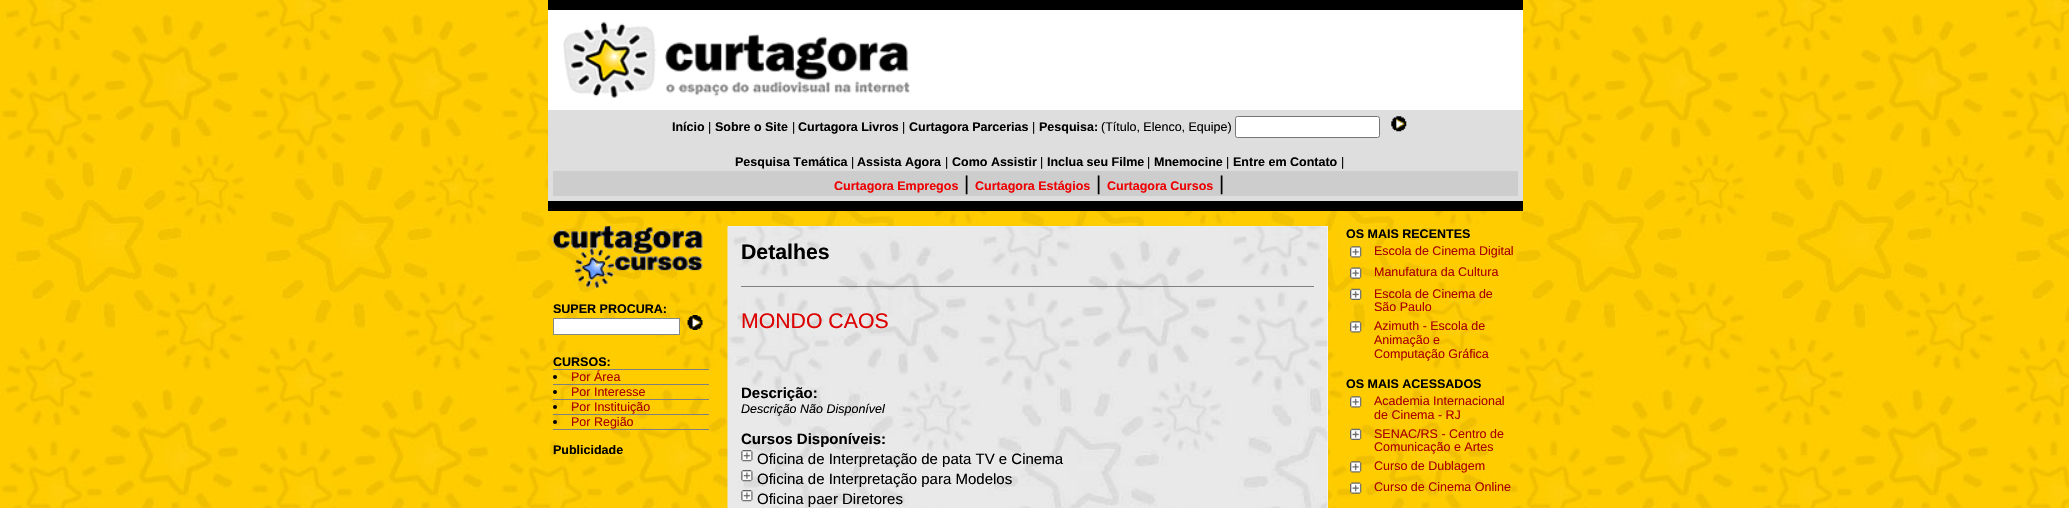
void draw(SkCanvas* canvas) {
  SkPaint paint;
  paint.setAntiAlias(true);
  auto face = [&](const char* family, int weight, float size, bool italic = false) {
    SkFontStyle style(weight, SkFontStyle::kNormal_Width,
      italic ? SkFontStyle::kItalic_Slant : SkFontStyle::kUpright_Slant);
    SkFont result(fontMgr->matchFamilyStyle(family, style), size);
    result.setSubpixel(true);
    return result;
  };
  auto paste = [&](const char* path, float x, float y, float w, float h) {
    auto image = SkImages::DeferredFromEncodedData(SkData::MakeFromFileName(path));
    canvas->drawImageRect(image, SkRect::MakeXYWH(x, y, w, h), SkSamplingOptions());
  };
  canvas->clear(0xffffffff);
  paste("img/1.png", 0, 0, 2069, 508);
  paint.setColor(0xff000000);
  canvas->drawRect(SkRect::MakeXYWH(548, 0, 975, 10), paint);
  paint.setColor(0xffffffff);
  canvas->drawRect(SkRect::MakeXYWH(548, 10, 975, 100), paint);
  paste("img/2.png", 563, 21, 347, 77);
  paint.setColor(0xffdedede);
  canvas->drawRect(SkRect::MakeXYWH(548, 110, 975, 91), paint);
  paint.setColor(0xffffffff);
  canvas->drawRoundRect(SkRect::MakeXYWH(1235.5f, 116.5f, 144, 21), 2, 2, paint);
  paint.setStroke(true);
  paint.setStrokeWidth(1);
  paint.setColor(0xff767676);
  canvas->drawRoundRect(SkRect::MakeXYWH(1235.5f, 116.5f, 144, 21), 2, 2, paint);
  paste("img/3.png", 1391, 116, 16, 16);
  paint.setStroke(false);
  paint.setColor(0xffcdcdcd);
  canvas->drawRect(SkRect::MakeXYWH(553, 171, 965, 25), paint);
  paint.setColor(0xff000000);
  canvas->drawRect(SkRect::MakeXYWH(548, 201, 975, 10), paint);
  paste("img/4.png", 552, 226, 151, 62);
  paint.setColor(0xffffffff);
  canvas->drawRect(SkRect::MakeXYWH(553.5f, 318.5f, 126, 16), paint);
  paint.setStroke(true);
  paint.setColor(0xff888888);
  canvas->drawRect(SkRect::MakeXYWH(553.5f, 318.5f, 126, 16), paint);
  paste("img/5.png", 687, 315, 16, 15);
  paint.setStroke(false);
  paint.setColor(0xff808080);
  canvas->drawRect(SkRect::MakeXYWH(553, 369, 156, 1), paint);
  paint.setColor(0xff000000);
  canvas->drawCircle(555, 377, 2, paint);
  paint.setColor(0xff808080);
  canvas->drawRect(SkRect::MakeXYWH(553, 384, 156, 1), paint);
  paint.setColor(0xff000000);
  canvas->drawCircle(555, 392, 2, paint);
  paint.setColor(0xff808080);
  canvas->drawRect(SkRect::MakeXYWH(553, 399, 156, 1), paint);
  paint.setColor(0xff000000);
  canvas->drawCircle(555, 407, 2, paint);
  paint.setColor(0xff808080);
  canvas->drawRect(SkRect::MakeXYWH(553, 414, 156, 1), paint);
  paint.setColor(0xff000000);
  canvas->drawCircle(555, 422, 2, paint);
  paint.setColor(0xff808080);
  canvas->drawRect(SkRect::MakeXYWH(553, 429, 156, 1), paint);
  paint.setColor(0xffffffff);
  canvas->drawRect(SkRect::MakeXYWH(728, 226, 600, 282), paint);
  paste("img/6.png", 727, 226, 601, 282);
  paint.setColor(0xff808080);
  canvas->drawRect(SkRect::MakeXYWH(741, 286, 573, 1), paint);
  paste("img/7.png", 741, 450, 12, 12);
  paste("img/8.png", 741, 470, 12, 12);
  paste("img/9.png", 741, 490, 12, 12);
  paste("img/10.png", 1350, 246, 12, 12);
  paste("img/11.png", 1350, 267, 12, 12);
  paste("img/12.png", 1350, 288, 12, 12);
  paste("img/13.png", 1350, 321, 12, 12);
  paste("img/14.png", 1350, 396, 12, 12);
  paste("img/15.png", 1350, 428, 12, 12);
  paste("img/16.png", 1350, 461, 12, 12);
  paste("img/17.png", 1350, 482, 12, 12);
  auto f0 = face("Liberation Sans", 700, 12.5f);
  paint.setColor(0xff000000);
  canvas->drawString("Início", 672, 131, f0, paint);
  auto f1 = face("Liberation Sans", 400, 12.5f);
  canvas->drawString("|", 708, 131, f1, paint);
  canvas->drawString("Sobre o Site", 715, 131, f0, paint);
  canvas->drawString("|", 792, 131, f1, paint);
  canvas->drawString("Curtagora Livros", 798, 131, f0, paint);
  canvas->drawString("|", 902, 131, f1, paint);
  canvas->drawString("Curtagora Parcerias", 909, 131, f0, paint);
  canvas->drawString("|", 1032, 131, f1, paint);
  canvas->drawString("Pesquisa:", 1039, 131, f0, paint);
  canvas->drawString("(Título, Elenco, Equipe)", 1101, 131, f1, paint);
  canvas->drawString("Pesquisa Temática", 735, 166, f0, paint);
  canvas->drawString("|", 851, 166, f1, paint);
  canvas->drawString("Assista Agora", 857, 166, f0, paint);
  canvas->drawString("|", 945, 166, f1, paint);
  canvas->drawString("Como Assistir", 952, 166, f0, paint);
  canvas->drawString("|", 1040, 166, f1, paint);
  canvas->drawString("Inclua seu Filme", 1047, 166, f0, paint);
  canvas->drawString("|", 1147, 166, f1, paint);
  canvas->drawString("Mnemocine", 1154, 166, f0, paint);
  canvas->drawString("|", 1226, 166, f1, paint);
  canvas->drawString("Entre em Contato", 1233, 166, f0, paint);
  canvas->drawString("|", 1341, 166, f1, paint);
  paint.setColor(0xffee0000);
  canvas->drawString("Curtagora Empregos", 834, 190, f0, paint);
  auto f2 = face("Liberation Sans", 400, 20);
  paint.setColor(0xff000000);
  canvas->drawString("|", 964, 190, f2, paint);
  paint.setColor(0xffee0000);
  canvas->drawString("Curtagora Estágios", 975, 190, f0, paint);
  paint.setColor(0xff000000);
  canvas->drawString("|", 1096, 190, f2, paint);
  paint.setColor(0xffee0000);
  canvas->drawString("Curtagora Cursos", 1107, 190, f0, paint);
  paint.setColor(0xff000000);
  canvas->drawString("|", 1219, 190, f2, paint);
  canvas->drawString("SUPER PROCURA:", 553, 313, f0, paint);
  canvas->drawString("CURSOS:", 553, 366, f0, paint);
  paint.setColor(0xffaa0000);
  {
    const struct { const char* s; float x, y; } items[] = {
      {"Por Área", 571, 381},
      {"Por Interesse", 571, 396},
      {"Por Instituição", 571, 411},
      {"Por Região", 571, 426},
    };
    for (auto [s, x, y] : items) {
      canvas->drawString(s, x, y, f1, paint);
    }
  }
  paint.setColor(0xff000000);
  canvas->drawString("Publicidade", 553, 454, f0, paint);
  auto f3 = face("Liberation Sans", 700, 21.25f);
  canvas->drawString("Detalhes", 741, 259, f3, paint);
  auto f4 = face("Liberation Sans", 400, 21.25f);
  paint.setColor(0xffdd0000);
  canvas->drawString("MONDO CAOS", 741, 328, f4, paint);
  auto f5 = face("Liberation Sans", 700, 15);
  paint.setColor(0xff000000);
  canvas->drawString("Descrição:", 741, 398, f5, paint);
  auto f6 = face("Liberation Sans", 400, 12.5f, true);
  canvas->drawString("Descrição Não Disponível", 741, 413, f6, paint);
  canvas->drawString("Cursos Disponíveis:", 741, 444, f5, paint);
  auto f7 = face("Liberation Sans", 400, 15);
  {
    const struct { const char* s; float x, y; } items[] = {
      {"Oficina de Interpretação de pata TV e Cinema", 757, 464},
      {"Oficina de Interpretação para Modelos", 757, 484},
      {"Oficina paer Diretores", 757, 504},
    };
    for (auto [s, x, y] : items) {
      canvas->drawString(s, x, y, f7, paint);
    }
  }
  canvas->drawString("OS MAIS RECENTES", 1346, 238, f0, paint);
  paint.setColor(0xffaa0000);
  {
    const struct { const char* s; float x, y; } items[] = {
      {"Escola de Cinema Digital", 1374, 255},
      {"Manufatura da Cultura", 1374, 276},
      {"Escola de Cinema de", 1374, 298},
      {"São Paulo", 1374, 311},
      {"Azimuth - Escola de", 1374, 330},
      {"Animação e", 1374, 344},
      {"Computação Gráfica", 1374, 358},
    };
    for (auto [s, x, y] : items) {
      canvas->drawString(s, x, y, f1, paint);
    }
  }
  paint.setColor(0xff000000);
  canvas->drawString("OS MAIS ACESSADOS", 1346, 388, f0, paint);
  paint.setColor(0xffaa0000);
  {
    const struct { const char* s; float x, y; } items[] = {
      {"Academia Internacional", 1374, 405},
      {"de Cinema - RJ", 1374, 419},
      {"SENAC/RS - Centro de", 1374, 438},
      {"Comunicação e Artes", 1374, 451},
      {"Curso de Dublagem", 1374, 470},
      {"Curso de Cinema Online", 1374, 491},
    };
    for (auto [s, x, y] : items) {
      canvas->drawString(s, x, y, f1, paint);
    }
  }
}
